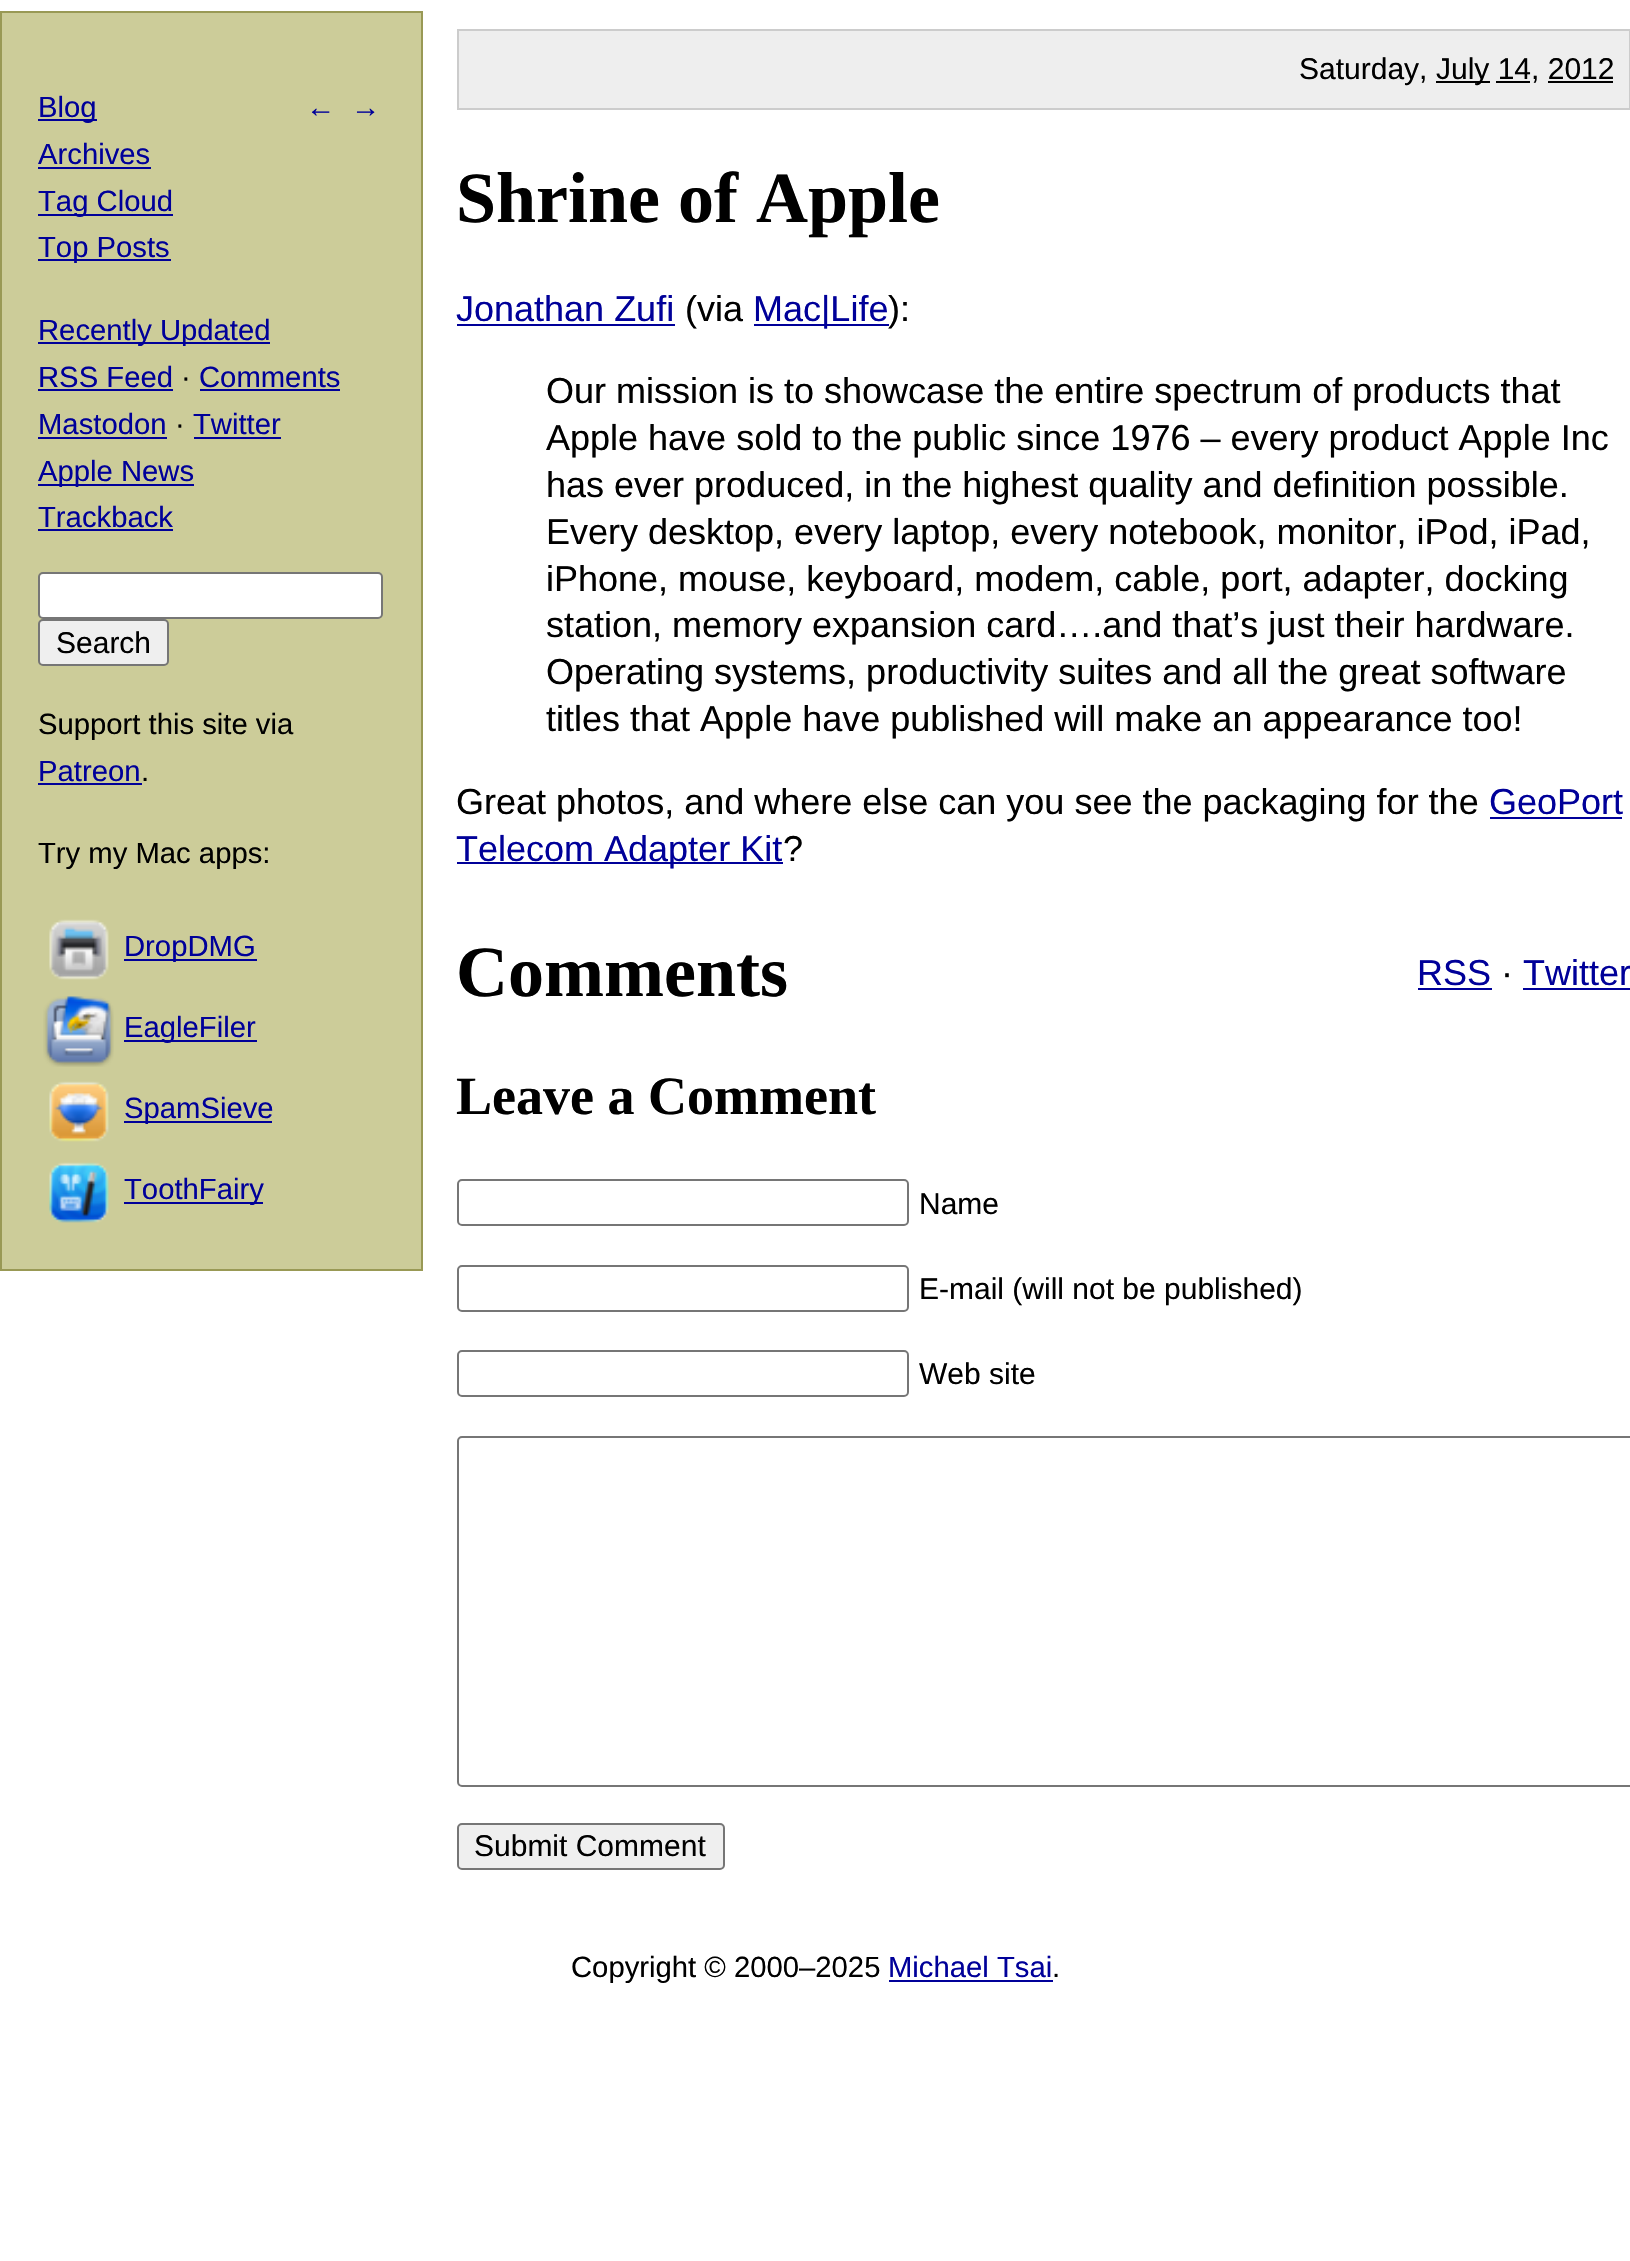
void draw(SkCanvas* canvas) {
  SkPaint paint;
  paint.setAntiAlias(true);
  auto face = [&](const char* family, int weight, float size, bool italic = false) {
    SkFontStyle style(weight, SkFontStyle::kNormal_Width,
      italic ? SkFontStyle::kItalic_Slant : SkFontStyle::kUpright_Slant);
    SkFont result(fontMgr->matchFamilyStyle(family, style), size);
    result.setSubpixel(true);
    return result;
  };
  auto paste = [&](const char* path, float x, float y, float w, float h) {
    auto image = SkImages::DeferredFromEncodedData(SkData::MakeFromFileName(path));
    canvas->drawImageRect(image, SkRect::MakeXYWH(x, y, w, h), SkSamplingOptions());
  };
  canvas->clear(0xffffffff);
  paint.setColor(0xffcccc99);
  canvas->drawRect(SkRect::MakeXYWH(1, 12, 421, 1258), paint);
  paint.setStroke(true);
  paint.setStrokeWidth(2);
  paint.setColor(0xff999955);
  canvas->drawRect(SkRect::MakeXYWH(1, 12, 421, 1258), paint);
  paint.setStroke(false);
  {
    const struct { float x, y, w, h; SkColor color; } items[] = {
      {38, 119, 59, 2, 0xff000099},
      {38, 167, 113, 2, 0xff000099},
      {38, 214, 135, 2, 0xff000099},
      {38, 259, 133, 2, 0xff000099},
      {38, 342, 232, 2, 0xff000099},
      {38, 389, 135, 2, 0xff000099},
      {200, 389, 140, 2, 0xff000099},
      {38, 437, 129, 2, 0xff000099},
      {194, 437, 87, 2, 0xff000099},
      {38, 484, 156, 2, 0xff000099},
      {38, 529, 135, 2, 0xff000099},
    };
    for (auto [x, y, w, h, color] : items) {
      paint.setColor(color);
      canvas->drawRect(SkRect::MakeXYWH(x, y, w, h), paint);
    }
  }
  paint.setColor(0xffffffff);
  canvas->drawRoundRect(SkRect::MakeXYWH(39, 573, 343, 45), 4, 4, paint);
  paint.setStroke(true);
  paint.setColor(0xff767676);
  canvas->drawRoundRect(SkRect::MakeXYWH(39, 573, 343, 45), 4, 4, paint);
  paint.setStroke(false);
  paint.setColor(0xffefefef);
  canvas->drawRoundRect(SkRect::MakeXYWH(39, 620, 129, 45), 4, 4, paint);
  paint.setStroke(true);
  paint.setColor(0xff767676);
  canvas->drawRoundRect(SkRect::MakeXYWH(39, 620, 129, 45), 4, 4, paint);
  paint.setStroke(false);
  paint.setColor(0xff000099);
  canvas->drawRect(SkRect::MakeXYWH(38, 783, 104, 2), paint);
  paste("img/1.png", 49, 919, 60, 61);
  canvas->drawRect(SkRect::MakeXYWH(124, 959, 133, 2), paint);
  paste("img/2.png", 43, 996, 71, 71);
  canvas->drawRect(SkRect::MakeXYWH(124, 1040, 133, 2), paint);
  paste("img/3.png", 49, 1081, 60, 61);
  canvas->drawRect(SkRect::MakeXYWH(124, 1121, 148, 2), paint);
  paste("img/4.png", 49, 1162, 60, 61);
  canvas->drawRect(SkRect::MakeXYWH(124, 1202, 139, 2), paint);
  paint.setColor(0xffeeeeee);
  canvas->drawRect(SkRect::MakeXYWH(458, 30, 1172, 79), paint);
  paint.setStroke(true);
  paint.setColor(0xffcccccc);
  canvas->drawRect(SkRect::MakeXYWH(458, 30, 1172, 79), paint);
  paint.setStroke(false);
  {
    const struct { float x, y, w, h; SkColor color; } items[] = {
      {1436, 81, 54, 2, 0xff000000},
      {1496, 81, 34, 2, 0xff000000},
      {1548, 81, 65, 2, 0xff000000},
      {457, 324, 218, 2, 0xff000099},
      {754, 324, 135, 2, 0xff000099},
      {1490, 817, 132, 2, 0xff000099},
      {457, 862, 326, 2, 0xff000099},
      {1418, 988, 74, 2, 0xff000099},
      {1523, 988, 107, 2, 0xff000099},
    };
    for (auto [x, y, w, h, color] : items) {
      paint.setColor(color);
      canvas->drawRect(SkRect::MakeXYWH(x, y, w, h), paint);
    }
  }
  paint.setStroke(true);
  paint.setColor(0xff767676);
  canvas->drawRoundRect(SkRect::MakeXYWH(458, 1180, 450, 45), 4, 4, paint);
  canvas->drawRoundRect(SkRect::MakeXYWH(458, 1266, 450, 45), 4, 4, paint);
  canvas->drawRoundRect(SkRect::MakeXYWH(458, 1351, 450, 45), 4, 4, paint);
  canvas->drawRoundRect(SkRect::MakeXYWH(458, 1437, 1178, 349), 4, 4, paint);
  paint.setStroke(false);
  paint.setColor(0xffefefef);
  canvas->drawRoundRect(SkRect::MakeXYWH(458, 1824, 266, 45), 4, 4, paint);
  paint.setStroke(true);
  paint.setColor(0xff767676);
  canvas->drawRoundRect(SkRect::MakeXYWH(458, 1824, 266, 45), 4, 4, paint);
  paint.setStroke(false);
  paint.setColor(0xff000099);
  canvas->drawRect(SkRect::MakeXYWH(889, 1980, 164, 2), paint);
  auto f0 = face("Liberation Sans", 400, 29.25f);
  {
    const struct { const char* s; float x, y; } items[] = {
      {"Blog", 38, 117},
      {"Archives", 38, 164},
      {"Tag Cloud", 38, 211},
      {"Top Posts", 38, 257},
      {"Recently Updated", 38, 340},
      {"RSS Feed", 38, 387},
    };
    for (auto [s, x, y] : items) {
      canvas->drawString(s, x, y, f0, paint);
    }
  }
  paint.setColor(0xff000000);
  canvas->drawString("·", 181, 387, f0, paint);
  paint.setColor(0xff000099);
  canvas->drawString("Comments", 199, 387, f0, paint);
  canvas->drawString("Mastodon", 38, 434, f0, paint);
  paint.setColor(0xff000000);
  canvas->drawString("·", 175, 434, f0, paint);
  paint.setColor(0xff000099);
  {
    const struct { const char* s; float x, y; } items[] = {
      {"Twitter", 193, 434},
      {"Apple News", 38, 481},
      {"Trackback", 38, 527},
      {"←", 306, 117},
      {"→", 351, 117},
    };
    for (auto [s, x, y] : items) {
      canvas->drawString(s, x, y, f0, paint);
    }
  }
  auto f1 = face("Liberation Sans", 400, 30);
  paint.setColor(0xff000000);
  canvas->drawString("Search", 56, 653, f1, paint);
  canvas->drawString("Support this site via", 38, 734, f0, paint);
  paint.setColor(0xff000099);
  canvas->drawString("Patreon", 38, 781, f0, paint);
  paint.setColor(0xff000000);
  canvas->drawString(".", 141, 781, f0, paint);
  canvas->drawString("Try my Mac apps:", 38, 863, f0, paint);
  paint.setColor(0xff000099);
  {
    const struct { const char* s; float x, y; } items[] = {
      {"DropDMG", 124, 956},
      {"EagleFiler", 124, 1037},
      {"SpamSieve", 124, 1118},
      {"ToothFairy", 124, 1199},
    };
    for (auto [s, x, y] : items) {
      canvas->drawString(s, x, y, f0, paint);
    }
  }
  paint.setColor(0xff000000);
  canvas->drawString("Saturday,", 1299, 79, f1, paint);
  canvas->drawString("July 14, 2012", 1436, 79, f1, paint);
  auto f2 = face("Liberation Serif", 700, 72);
  canvas->drawString("Shrine of Apple", 456, 222, f2, paint);
  auto f3 = face("Liberation Sans", 400, 36);
  paint.setColor(0xff000099);
  canvas->drawString("Jonathan Zufi", 456, 321, f3, paint);
  paint.setColor(0xff000000);
  canvas->drawString("(via", 685, 321, f3, paint);
  paint.setColor(0xff000099);
  canvas->drawString("Mac|Life", 753, 321, f3, paint);
  paint.setColor(0xff000000);
  {
    const struct { const char* s; float x, y; } items[] = {
      {"):", 888, 321},
      {"Our mission is to showcase the entire spectrum of products that", 546, 403},
      {"Apple have sold to the public since 1976 – every product Apple Inc", 546, 450},
      {"has ever produced, in the highest quality and definition possible.", 546, 497},
      {"Every desktop, every laptop, every notebook, monitor, iPod, iPad,", 546, 544},
      {"iPhone, mouse, keyboard, modem, cable, port, adapter, docking", 546, 591},
      {"station, memory expansion card….and that’s just their hardware.", 546, 637},
      {"Operating systems, productivity suites and all the great software", 546, 684},
      {"titles that Apple have published will make an appearance too!", 546, 731},
      {"Great photos, and where else can you see the packaging for the", 456, 814},
    };
    for (auto [s, x, y] : items) {
      canvas->drawString(s, x, y, f3, paint);
    }
  }
  paint.setColor(0xff000099);
  canvas->drawString("GeoPort", 1489, 814, f3, paint);
  canvas->drawString("Telecom Adapter Kit", 456, 861, f3, paint);
  paint.setColor(0xff000000);
  canvas->drawString("?", 783, 861, f3, paint);
  canvas->drawString("Comments", 456, 996, f2, paint);
  paint.setColor(0xff000099);
  canvas->drawString("RSS", 1417, 985, f3, paint);
  paint.setColor(0xff000000);
  canvas->drawString("·", 1501, 985, f3, paint);
  paint.setColor(0xff000099);
  canvas->drawString("Twitter", 1523, 985, f3, paint);
  auto f4 = face("Liberation Serif", 700, 54);
  paint.setColor(0xff000000);
  canvas->drawString("Leave a Comment", 456, 1114, f4, paint);
  {
    const struct { const char* s; float x, y; } items[] = {
      {"Name", 919, 1214},
      {"E-mail (will not be published)", 919, 1299},
      {"Web site", 919, 1384},
      {"Submit Comment", 474, 1856},
    };
    for (auto [s, x, y] : items) {
      canvas->drawString(s, x, y, f1, paint);
    }
  }
  canvas->drawString("Copyright © 2000–2025", 571, 1977, f0, paint);
  paint.setColor(0xff000099);
  canvas->drawString("Michael Tsai", 888, 1977, f0, paint);
  paint.setColor(0xff000000);
  canvas->drawString(".", 1052, 1977, f0, paint);
}
